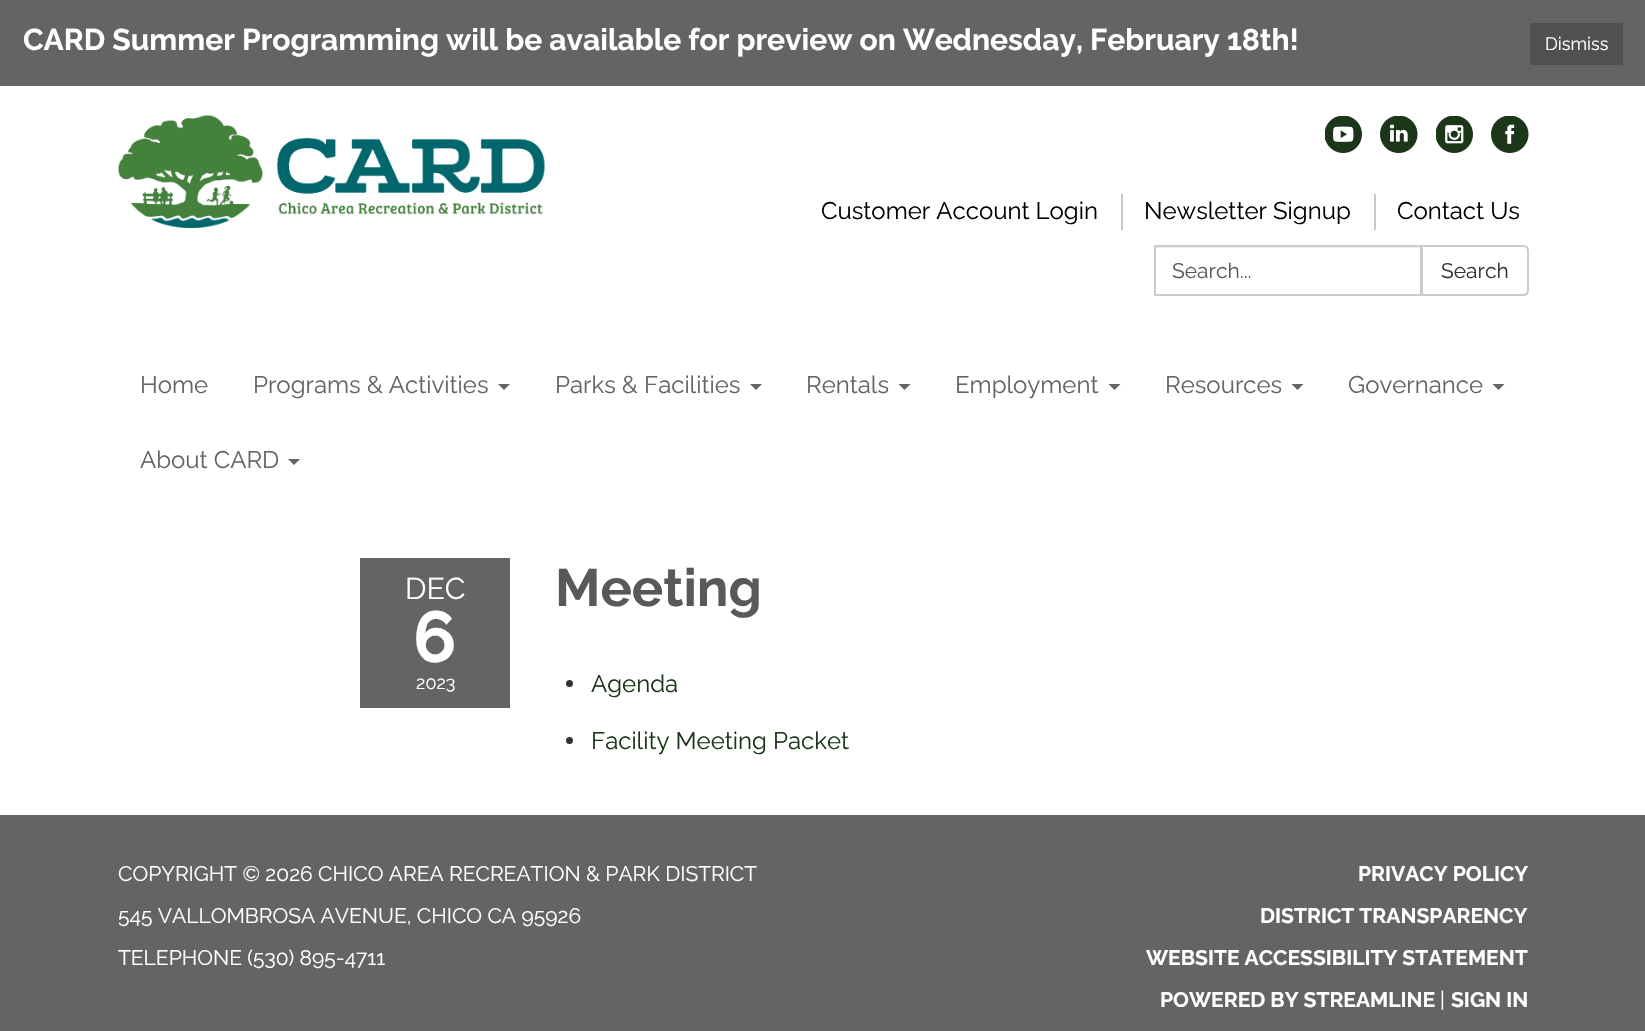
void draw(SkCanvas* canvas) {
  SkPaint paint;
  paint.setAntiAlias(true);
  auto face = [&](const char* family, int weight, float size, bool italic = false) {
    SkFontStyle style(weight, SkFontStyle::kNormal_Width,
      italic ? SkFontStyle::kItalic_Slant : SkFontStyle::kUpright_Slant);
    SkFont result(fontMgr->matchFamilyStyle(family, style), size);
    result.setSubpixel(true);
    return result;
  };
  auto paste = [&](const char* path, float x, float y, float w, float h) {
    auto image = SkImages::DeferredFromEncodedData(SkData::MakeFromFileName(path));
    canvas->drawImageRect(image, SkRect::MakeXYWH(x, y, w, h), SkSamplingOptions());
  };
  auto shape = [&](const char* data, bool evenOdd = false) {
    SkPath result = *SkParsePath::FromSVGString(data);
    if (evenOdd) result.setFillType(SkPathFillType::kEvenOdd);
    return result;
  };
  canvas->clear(0xff646464);
  paint.setColor(0xff505050);
  canvas->drawRect(SkRect::MakeXYWH(1530, 23, 93, 42), paint);
  paint.setColor(0xffffffff);
  canvas->drawRect(SkRect::MakeXYWH(0, 86, 1645, 262), paint);
  paste("img/1.png", 118, 115, 427, 113);
  paste("img/2.png", 1325, 116, 37, 37);
  paste("img/3.png", 1380, 116, 38, 37);
  paste("img/4.png", 1436, 116, 37, 37);
  paste("img/5.png", 1491, 116, 38, 37);
  {
    const struct { float x, y, w, h; SkColor color; } items[] = {
      {1121, 194, 2, 36, 0xffc8c9cb},
      {1374, 194, 2, 36, 0xffc8c9cb},
      {1155, 247, 266, 1, 0xffececec},
    };
    for (auto [x, y, w, h, color] : items) {
      paint.setColor(color);
      canvas->drawRect(SkRect::MakeXYWH(x, y, w, h), paint);
    }
  }
  paint.setStroke(true);
  paint.setStrokeWidth(2);
  paint.setColor(0xffcccccc);
  canvas->drawRect(SkRect::MakeXYWH(1155, 246, 266, 49), paint);
  paint.setStroke(false);
  paint.setColor(0xffffffff);
  canvas->drawPath(shape("M1422 246H1523C1526 246 1528 248 1528 251V290C1528 293 1526 295 1523 295H1422Z"), paint);
  paint.setStroke(true);
  paint.setColor(0xffcccccc);
  canvas->drawPath(shape("M1422 246H1523C1526 246 1528 248 1528 251V290C1528 293 1526 295 1523 295H1422Z"), paint);
  paint.setStroke(false);
  paint.setColor(0xffffffff);
  canvas->drawRect(SkRect::MakeXYWH(0, 348, 1645, 467), paint);
  paint.setColor(0xff646464);
  canvas->drawPath(shape("M498 384H510L504 390Z"), paint);
  canvas->drawPath(shape("M750 384H762L756 390Z"), paint);
  canvas->drawPath(shape("M898.5 384H910.5L904.5 390Z"), paint);
  canvas->drawPath(shape("M1108.5 384H1120.5L1114.5 390Z"), paint);
  canvas->drawPath(shape("M1291.5 384H1303.5L1297.5 390Z"), paint);
  canvas->drawPath(shape("M1492.5 384H1504.5L1498.5 390Z"), paint);
  canvas->drawPath(shape("M288 459H300L294 465Z"), paint);
  canvas->drawRect(SkRect::MakeXYWH(360, 558, 150, 150), paint);
  paint.setColor(0xff333333);
  canvas->drawCircle(569.5f, 683.5f, 3.5f, paint);
  canvas->drawCircle(569.5f, 740.5f, 3.5f, paint);
  auto f0 = face("Raleway", 700, 30);
  paint.setColor(0xffffffff);
  canvas->drawString("CARD Summer Programming will be available for preview on Wednesday, February 18th!", 23, 50, f0, paint);
  auto f1 = face("Raleway", 400, 18);
  canvas->drawString("Dismiss", 1545, 50, f1, paint);
  auto f2 = face("Raleway", 400, 24);
  paint.setColor(0xff000000);
  {
    const struct { const char* s; float x, y; } items[] = {
      {"Customer Account Login", 821, 219},
      {"Newsletter Signup", 1144, 219},
      {"Contact Us", 1397, 219},
    };
    for (auto [s, x, y] : items) {
      canvas->drawString(s, x, y, f2, paint);
    }
  }
  auto f3 = face("Raleway", 400, 21);
  paint.setColor(0xff58595b);
  canvas->drawString("Search...", 1172, 278, f3, paint);
  paint.setColor(0xff333333);
  canvas->drawString("Search", 1441, 278, f3, paint);
  paint.setColor(0xff646464);
  {
    const struct { const char* s; float x, y; } items[] = {
      {"Home", 140, 393},
      {"Programs & Activities", 253, 393},
      {"Parks & Facilities", 555, 393},
      {"Rentals", 806, 393},
      {"Employment", 955, 393},
      {"Resources", 1165, 393},
      {"Governance", 1348, 393},
      {"About CARD", 140, 468},
    };
    for (auto [s, x, y] : items) {
      canvas->drawString(s, x, y, f2, paint);
    }
  }
  auto f4 = face("Raleway", 400, 30);
  paint.setColor(0xffffffff);
  canvas->drawString("DEC", 405, 599, f4, paint);
  auto f5 = face("Raleway", 700, 72);
  canvas->drawString("6", 413, 662, f5, paint);
  canvas->drawString("2023", 416, 689, f1, paint);
  auto f6 = face("Raleway", 700, 52.5f);
  paint.setColor(0xff58595b);
  canvas->drawString("Meeting", 555, 606, f6, paint);
  paint.setColor(0xff1b3619);
  canvas->drawString("Agenda", 591, 692, f2, paint);
  canvas->drawString("Facility Meeting Packet", 591, 749, f2, paint);
  paint.setColor(0xffffffff);
  {
    const struct { const char* s; float x, y; } items[] = {
      {"COPYRIGHT © 2026 CHICO AREA RECREATION & PARK DISTRICT", 118, 881},
      {"545 VALLOMBROSA AVENUE, CHICO CA 95926", 118, 923},
      {"TELEPHONE (530) 895-4711", 118, 965},
    };
    for (auto [s, x, y] : items) {
      canvas->drawString(s, x, y, f3, paint);
    }
  }
  auto f7 = face("Raleway", 700, 21);
  {
    const struct { const char* s; float x, y; } items[] = {
      {"PRIVACY POLICY", 1358, 881},
      {"DISTRICT TRANSPARENCY", 1260, 923},
      {"WEBSITE ACCESSIBILITY STATEMENT", 1146, 965},
      {"POWERED BY STREAMLINE", 1160, 1007},
    };
    for (auto [s, x, y] : items) {
      canvas->drawString(s, x, y, f7, paint);
    }
  }
  canvas->drawString("|", 1440, 1007, f3, paint);
  canvas->drawString("SIGN IN", 1451, 1007, f7, paint);
}
